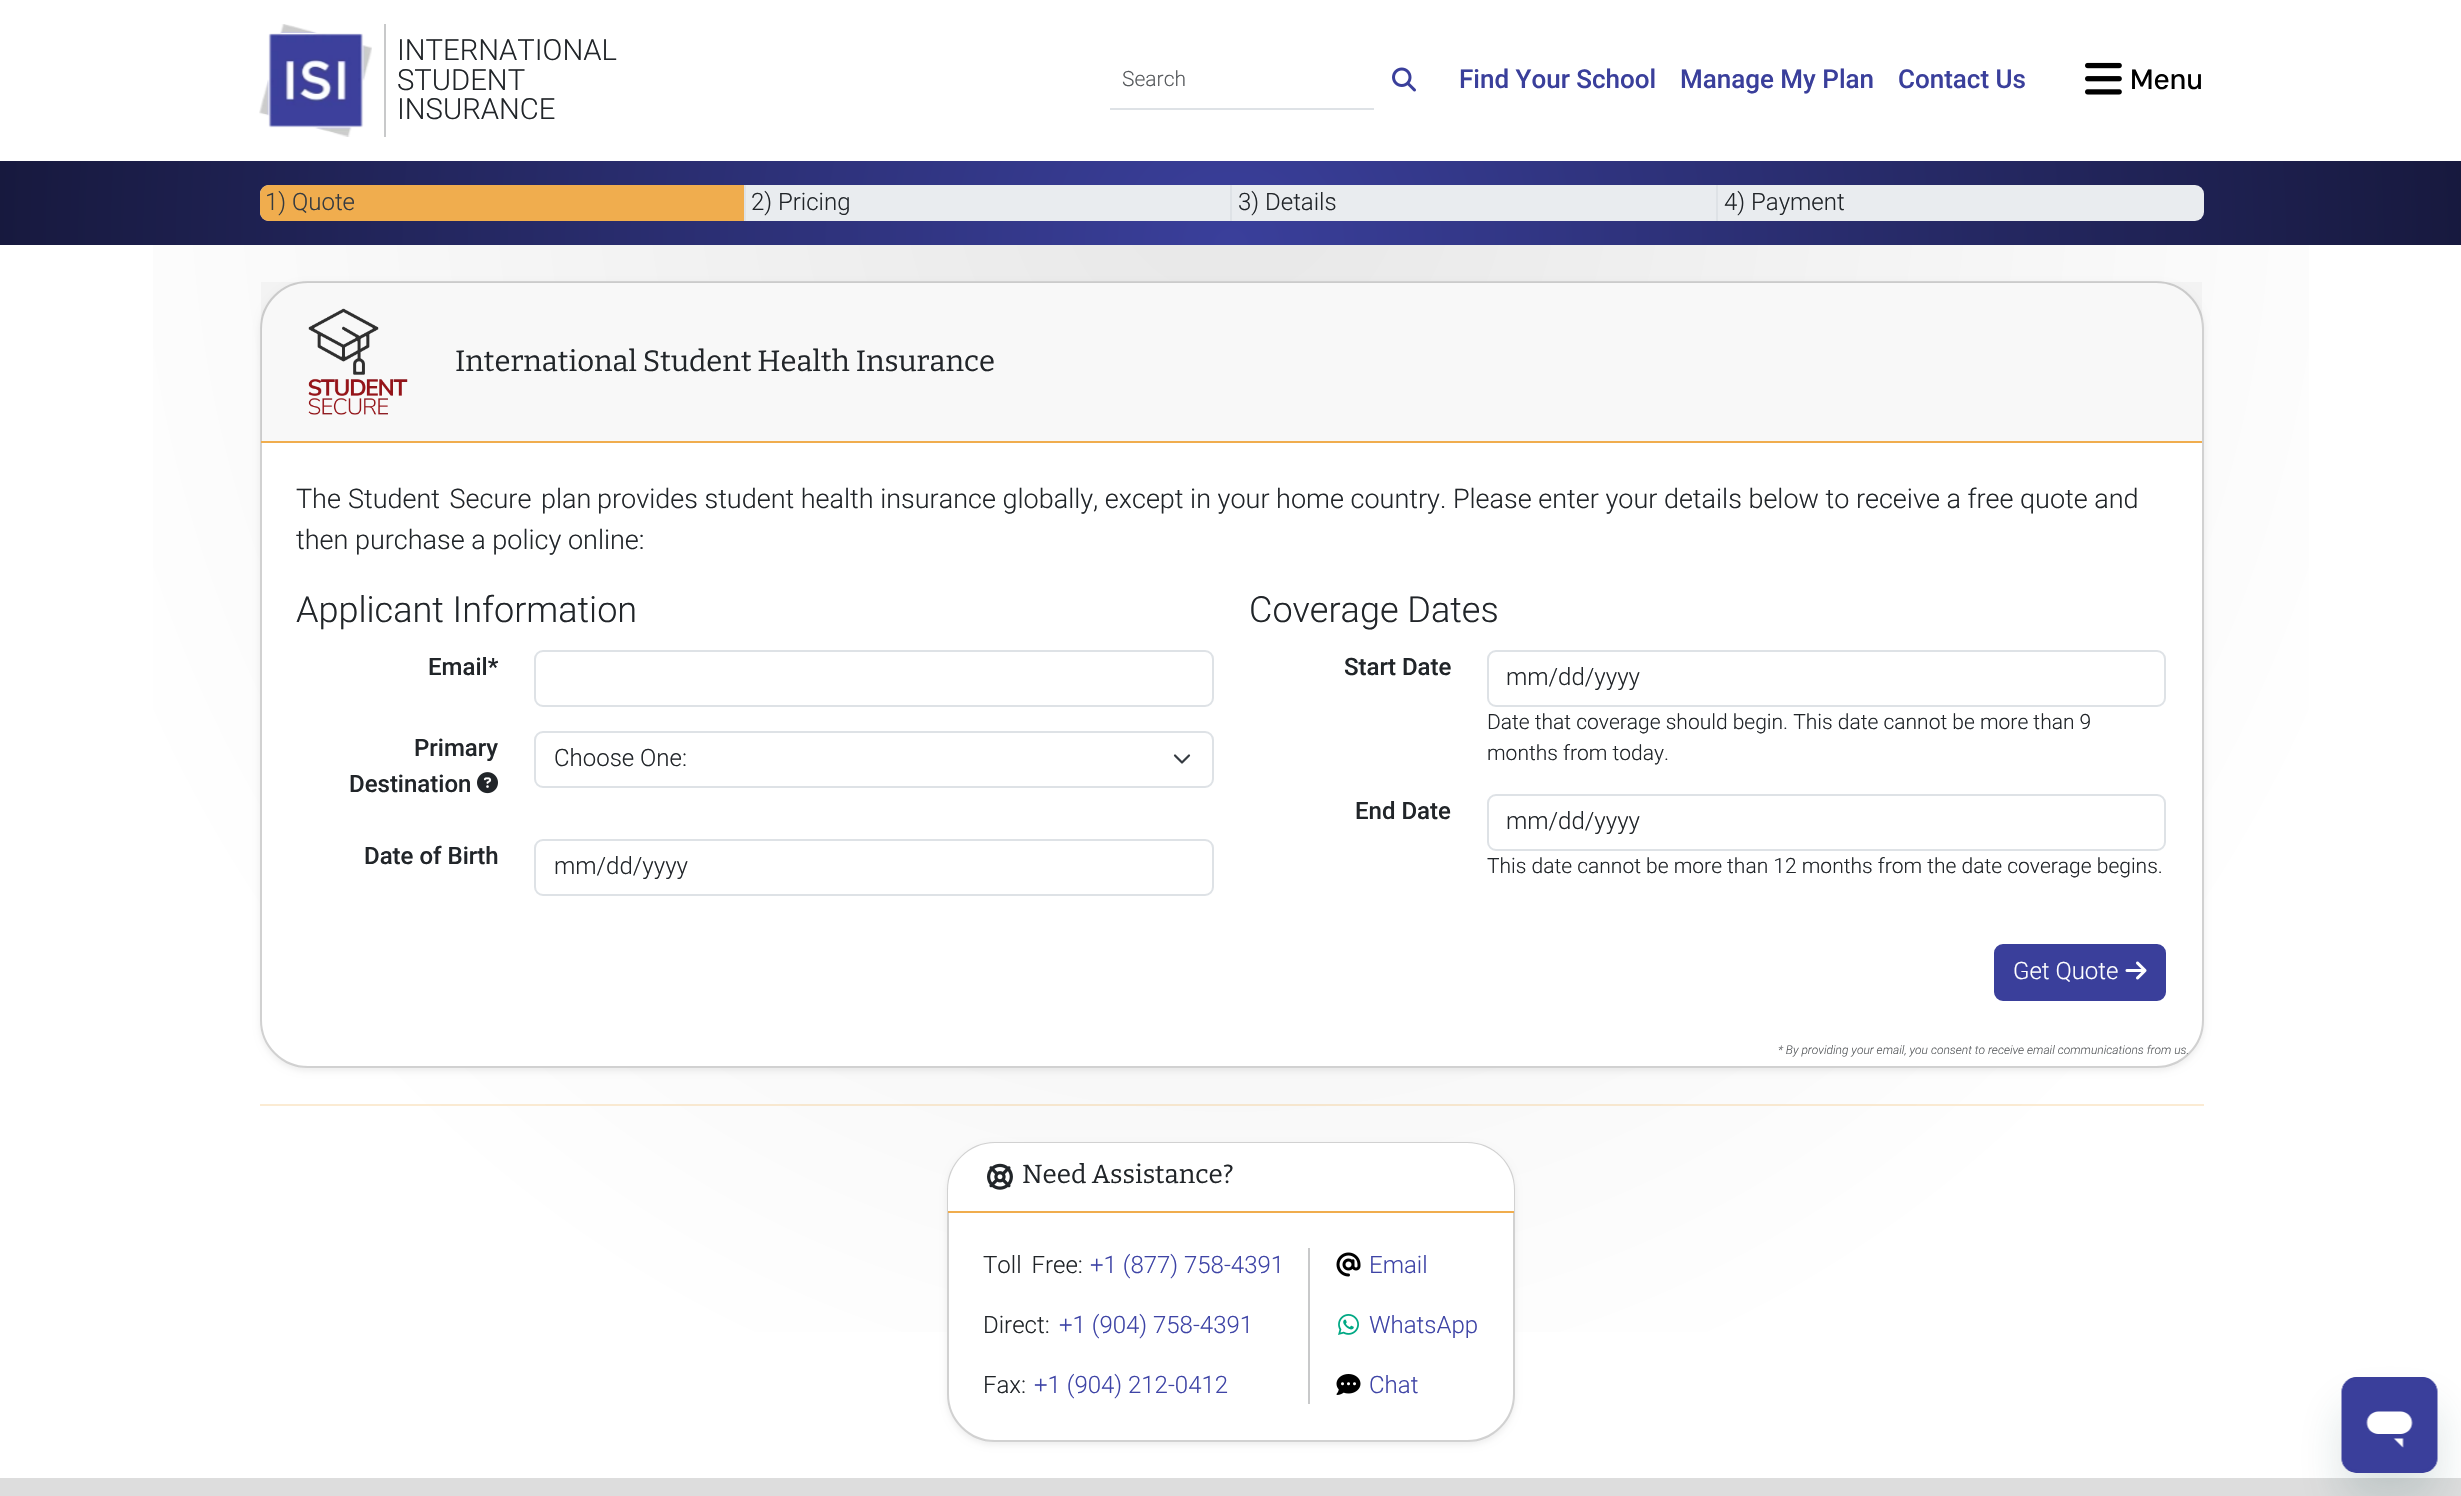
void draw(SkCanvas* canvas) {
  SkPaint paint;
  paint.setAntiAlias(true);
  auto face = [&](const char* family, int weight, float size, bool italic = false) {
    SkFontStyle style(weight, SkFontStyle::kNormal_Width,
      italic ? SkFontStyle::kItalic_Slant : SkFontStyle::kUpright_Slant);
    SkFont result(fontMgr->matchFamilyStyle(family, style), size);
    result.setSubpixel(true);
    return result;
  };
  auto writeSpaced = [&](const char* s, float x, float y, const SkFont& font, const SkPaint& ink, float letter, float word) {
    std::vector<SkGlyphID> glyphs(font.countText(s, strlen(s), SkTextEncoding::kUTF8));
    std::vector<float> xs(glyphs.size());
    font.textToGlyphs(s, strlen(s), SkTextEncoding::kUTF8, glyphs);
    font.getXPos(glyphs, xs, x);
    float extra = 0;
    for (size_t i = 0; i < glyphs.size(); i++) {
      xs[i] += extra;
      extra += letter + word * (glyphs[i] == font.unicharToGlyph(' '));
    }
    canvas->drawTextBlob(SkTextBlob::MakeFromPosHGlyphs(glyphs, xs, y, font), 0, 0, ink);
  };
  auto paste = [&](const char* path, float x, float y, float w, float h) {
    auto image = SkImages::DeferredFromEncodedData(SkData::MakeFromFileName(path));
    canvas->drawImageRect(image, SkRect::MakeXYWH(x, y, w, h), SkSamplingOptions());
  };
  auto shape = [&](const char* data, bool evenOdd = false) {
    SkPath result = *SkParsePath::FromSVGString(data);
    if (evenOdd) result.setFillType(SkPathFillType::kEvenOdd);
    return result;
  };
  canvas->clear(0xffffffff);
  paste("img/1.png", 259, 24, 113, 113);
  paint.setColor(0xffc8c9ca);
  canvas->drawRect(SkRect::MakeXYWH(384, 24, 2, 113), paint);
  paint.setColor(0xffdee2e6);
  canvas->drawRect(SkRect::MakeXYWH(1110, 108, 264, 2), paint);
  paste("img/2.png", 1392, 67, 24, 25);
  paste("img/3.png", 2085, 62, 37, 33);
  {
    const SkColor colors[] = {0xffe7e7e7, 0xffffffff};
    const float stops[] = {0, 0.7f};
    SkMatrix m = SkMatrix::Translate(1231, 161).preScale(1741, 1863);
    paint.setShader(SkGradientShader::MakeRadial({0, 0}, 1, colors, stops, 2, SkTileMode::kClamp, 0, &m));
    paint.setAlpha(255);
  }
  canvas->drawRect(SkRect::MakeXYWH(153, 245, 2156, 1087), paint);
  {
    const SkColor colors[] = {0xffe9d9c1, 0xfffbebd3};
    const float stops[] = {0, 0.7f};
    SkMatrix m = SkMatrix::Translate(1231, 161).preScale(1741, 1863);
    paint.setShader(SkGradientShader::MakeRadial({0, 0}, 1, colors, stops, 2, SkTileMode::kClamp, 0, &m));
    paint.setAlpha(255);
  }
  canvas->drawRect(SkRect::MakeXYWH(260, 1104, 1944, 2), paint);
  {
    const SkColor colors[] = {0xff3a3f9b, 0xff17193e};
    const float stops[] = {0, 1};
    paint.setShader(SkGradientShader::MakeRadial({1231, 245}, 1234, colors, stops, 2, SkTileMode::kClamp));
    paint.setAlpha(255);
  }
  canvas->drawRect(SkRect::MakeXYWH(0, 161, 2461, 84), paint);
  paint.setShader(nullptr);
  paint.setColor(0xffe9ecef);
  canvas->drawRoundRect(SkRect::MakeXYWH(260, 185, 1944, 36), 9, 9, paint);
  paint.setColor(0xfff0ad4e);
  canvas->drawPath(shape("M269 185H746V221H269C264 221 260 217 260 212V194C260 189 264 185 269 185Z"), paint);
  {
    const struct { float x, y, w, h; SkColor color; } items[] = {
      {744, 185, 2, 36, 0xffdee2e6},
      {1230, 185, 2, 36, 0xffdee2e6},
      {1716, 185, 2, 36, 0xffdee2e6},
    };
    for (auto [x, y, w, h, color] : items) {
      paint.setColor(color);
      canvas->drawRect(SkRect::MakeXYWH(x, y, w, h), paint);
    }
  }
  paint.setColor(0x12000000);
  paint.setMaskFilter(SkMaskFilter::MakeBlur(kNormal_SkBlurStyle, 3));
  canvas->drawRoundRect(SkRect::MakeXYWH(260, 284, 1944, 787), 48, 48, paint);
  paint.setMaskFilter(nullptr);
  paint.setColor(0xffffffff);
  canvas->drawRoundRect(SkRect::MakeXYWH(260, 281, 1944, 787), 48, 48, paint);
  paint.setStroke(true);
  paint.setStrokeWidth(2);
  paint.setColor(0x2e000000);
  canvas->drawRoundRect(SkRect::MakeXYWH(261, 282, 1942, 785), 47, 47, paint);
  paint.setStroke(false);
  paint.setColor(0x08212529);
  canvas->drawRect(SkRect::MakeXYWH(261, 282, 1941, 159), paint);
  paint.setColor(0xfff0ad4e);
  canvas->drawRect(SkRect::MakeXYWH(261, 441, 1941, 2), paint);
  paste("img/4.png", 308, 308, 100, 107);
  paint.setStroke(true);
  paint.setColor(0xffdee2e6);
  canvas->drawRoundRect(SkRect::MakeXYWH(535, 651, 678, 55), 8, 8, paint);
  paste("img/5.png", 477, 772, 21, 22);
  paint.setStrokeWidth(2.2f);
  paint.setStrokeCap(SkPaint::kRound_Cap);
  paint.setStrokeJoin(SkPaint::kRound_Join);
  paint.setColor(0xff343a40);
  canvas->drawPath(shape("M1175 755.5L1182 762.5L1189 755.5"), paint);
  paint.setStrokeWidth(2);
  paint.setStrokeCap(SkPaint::kButt_Cap);
  paint.setStrokeJoin(SkPaint::kMiter_Join);
  paint.setColor(0xffdee2e6);
  canvas->drawRoundRect(SkRect::MakeXYWH(535, 732, 678, 55), 8, 8, paint);
  canvas->drawRoundRect(SkRect::MakeXYWH(535, 840, 678, 55), 8, 8, paint);
  canvas->drawRoundRect(SkRect::MakeXYWH(1488, 651, 677, 55), 8, 8, paint);
  canvas->drawRoundRect(SkRect::MakeXYWH(1488, 795, 677, 55), 8, 8, paint);
  paint.setStroke(false);
  paint.setColor(0xff3a3f9b);
  canvas->drawRoundRect(SkRect::MakeXYWH(1995, 945, 170, 55), 8, 8, paint);
  paint.setStroke(true);
  canvas->drawRoundRect(SkRect::MakeXYWH(1995, 945, 170, 55), 8, 8, paint);
  paste("img/6.png", 2125, 961, 22, 19);
  paint.setStroke(false);
  paint.setColor(0x12000000);
  paint.setMaskFilter(SkMaskFilter::MakeBlur(kNormal_SkBlurStyle, 3));
  canvas->drawRoundRect(SkRect::MakeXYWH(947, 1145, 568, 300), 48, 48, paint);
  paint.setMaskFilter(nullptr);
  paint.setColor(0xffffffff);
  canvas->drawRoundRect(SkRect::MakeXYWH(947, 1142, 568, 300), 48, 48, paint);
  paint.setStroke(true);
  paint.setColor(0x2e000000);
  canvas->drawRoundRect(SkRect::MakeXYWH(948, 1143, 566, 298), 47, 47, paint);
  paint.setStroke(false);
  paint.setColor(0xffffffff);
  canvas->drawPath(shape("M995 1143H1467C1493 1143 1514 1164 1514 1190V1212H948V1190C948 1164 969 1143 995 1143Z"), paint);
  paint.setColor(0xfff0ad4e);
  canvas->drawRect(SkRect::MakeXYWH(948, 1211, 566, 2), paint);
  paste("img/7.png", 987, 1163, 26, 27);
  paint.setColor(0xffc8c9ca);
  canvas->drawRect(SkRect::MakeXYWH(1308, 1248, 2, 156), paint);
  paste("img/8.png", 1336, 1252, 25, 25);
  paste("img/9.png", 1338, 1314, 21, 21);
  paste("img/10.png", 1336, 1374, 25, 21);
  paint.setColor(0xffdddddd);
  canvas->drawRect(SkRect::MakeXYWH(0, 1478, 2461, 18), paint);
  paint.setColor(0x2617494d);
  paint.setMaskFilter(SkMaskFilter::MakeBlur(kNormal_SkBlurStyle, 22.5f));
  canvas->drawRoundRect(SkRect::MakeXYWH(2342, 1407, 96, 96), 15, 15, paint);
  paint.setMaskFilter(nullptr);
  paste("img/11.png", 2341, 1377, 97, 96);
  auto f0 = face("Roboto", 300, 29.25f);
  paint.setColor(0xff212529);
  {
    const struct { const char* s; float x, y; } items[] = {
      {"INTERNATIONAL", 397, 60},
      {"STUDENT", 397, 90},
      {"INSURANCE", 397, 119},
    };
    for (auto [s, x, y] : items) {
      canvas->drawString(s, x, y, f0, paint);
    }
  }
  auto f1 = face("Roboto", 300, 21);
  paint.setColor(0xff585b5e);
  canvas->drawString("Search", 1122, 86, f1, paint);
  auto f2 = face("Roboto", 500, 26);
  paint.setColor(0xff3a3f9b);
  {
    const struct { const char* s; float x, y; } items[] = {
      {"Find Your School", 1459, 88},
      {"Manage My Plan", 1680, 88},
      {"Contact Us", 1898, 88},
    };
    for (auto [s, x, y] : items) {
      canvas->drawString(s, x, y, f2, paint);
    }
  }
  auto f3 = face("DM Sans", 500, 28);
  paint.setColor(0xff000000);
  canvas->drawString("Menu", 2130, 89, f3, paint);
  auto f4 = face("Roboto", 300, 24);
  paint.setColor(0xff343a40);
  canvas->drawString("1) Quote", 265, 210, f4, paint);
  paint.setColor(0xff212529);
  {
    const struct { const char* s; float x, y; } items[] = {
      {"2) Pricing", 751, 210},
      {"3) Details", 1238, 210},
      {"4) Payment", 1724, 210},
    };
    for (auto [s, x, y] : items) {
      canvas->drawString(s, x, y, f4, paint);
    }
  }
  auto f5 = face("Bitter", 100, 29.25f);
  canvas->drawString("International Student Health Insurance", 455, 371, f5, paint);
  auto f6 = face("Roboto", 300, 27);
  canvas->drawString("The", 296, 508, f6, paint);
  writeSpaced("Student Secure plan", 348, 508, f6, paint, 0, 3);
  canvas->drawString("provides student health insurance globally, except in your home country. Please enter your details below to receive a free quote and", 597, 508, f6, paint);
  canvas->drawString("then purchase a policy online:", 296, 549, f6, paint);
  auto f7 = face("Roboto", 300, 36);
  canvas->drawString("Applicant Information", 296, 622, f7, paint);
  auto f8 = face("Roboto", 500, 24);
  {
    const struct { const char* s; float x, y; } items[] = {
      {"Email*", 428, 675},
      {"Primary", 414, 756},
      {"Destination", 349, 792},
    };
    for (auto [s, x, y] : items) {
      canvas->drawString(s, x, y, f8, paint);
    }
  }
  canvas->drawString("Choose One:", 554, 766, f4, paint);
  canvas->drawString("Date of Birth", 364, 864, f8, paint);
  canvas->drawString("mm/dd/yyyy", 554, 874, f4, paint);
  canvas->drawString("Coverage Dates", 1249, 622, f7, paint);
  canvas->drawString("Start Date", 1344, 675, f8, paint);
  canvas->drawString("mm/dd/yyyy", 1506, 685, f4, paint);
  canvas->drawString("Date that coverage should begin. This date cannot be more than 9", 1487, 729, f1, paint);
  canvas->drawString("months from today.", 1487, 760, f1, paint);
  canvas->drawString("End Date", 1355, 819, f8, paint);
  canvas->drawString("mm/dd/yyyy", 1506, 829, f4, paint);
  canvas->drawString("This date cannot be more than 12 months from the date coverage begins.", 1487, 873, f1, paint);
  paint.setColor(0xffffffff);
  canvas->drawString("Get Quote", 2013, 979, f4, paint);
  auto f9 = face("Roboto", 300, 12, true);
  paint.setColor(0xff585b5e);
  canvas->drawString("* By providing your email, you consent to receive email communications from us.", 1778, 1054, f9, paint);
  auto f10 = face("Bitter", 100, 26);
  paint.setColor(0xff212529);
  canvas->drawString("Need Assistance?", 1022, 1183, f10, paint);
  writeSpaced("Toll Free:", 983, 1273, f4, paint, 0, 4);
  paint.setColor(0xff3e44a6);
  canvas->drawString("+1 (877) 758-4391", 1090, 1273, f4, paint);
  paint.setColor(0xff212529);
  canvas->drawString("Direct:", 983, 1333, f4, paint);
  paint.setColor(0xff3e44a6);
  canvas->drawString("+1 (904) 758-4391", 1059, 1333, f4, paint);
  paint.setColor(0xff212529);
  canvas->drawString("Fax:", 983, 1393, f4, paint);
  paint.setColor(0xff3e44a6);
  {
    const struct { const char* s; float x, y; } items[] = {
      {"+1 (904) 212-0412", 1034, 1393},
      {"Email", 1369, 1273},
      {"WhatsApp", 1369, 1333},
      {"Chat", 1369, 1393},
    };
    for (auto [s, x, y] : items) {
      canvas->drawString(s, x, y, f4, paint);
    }
  }
}
